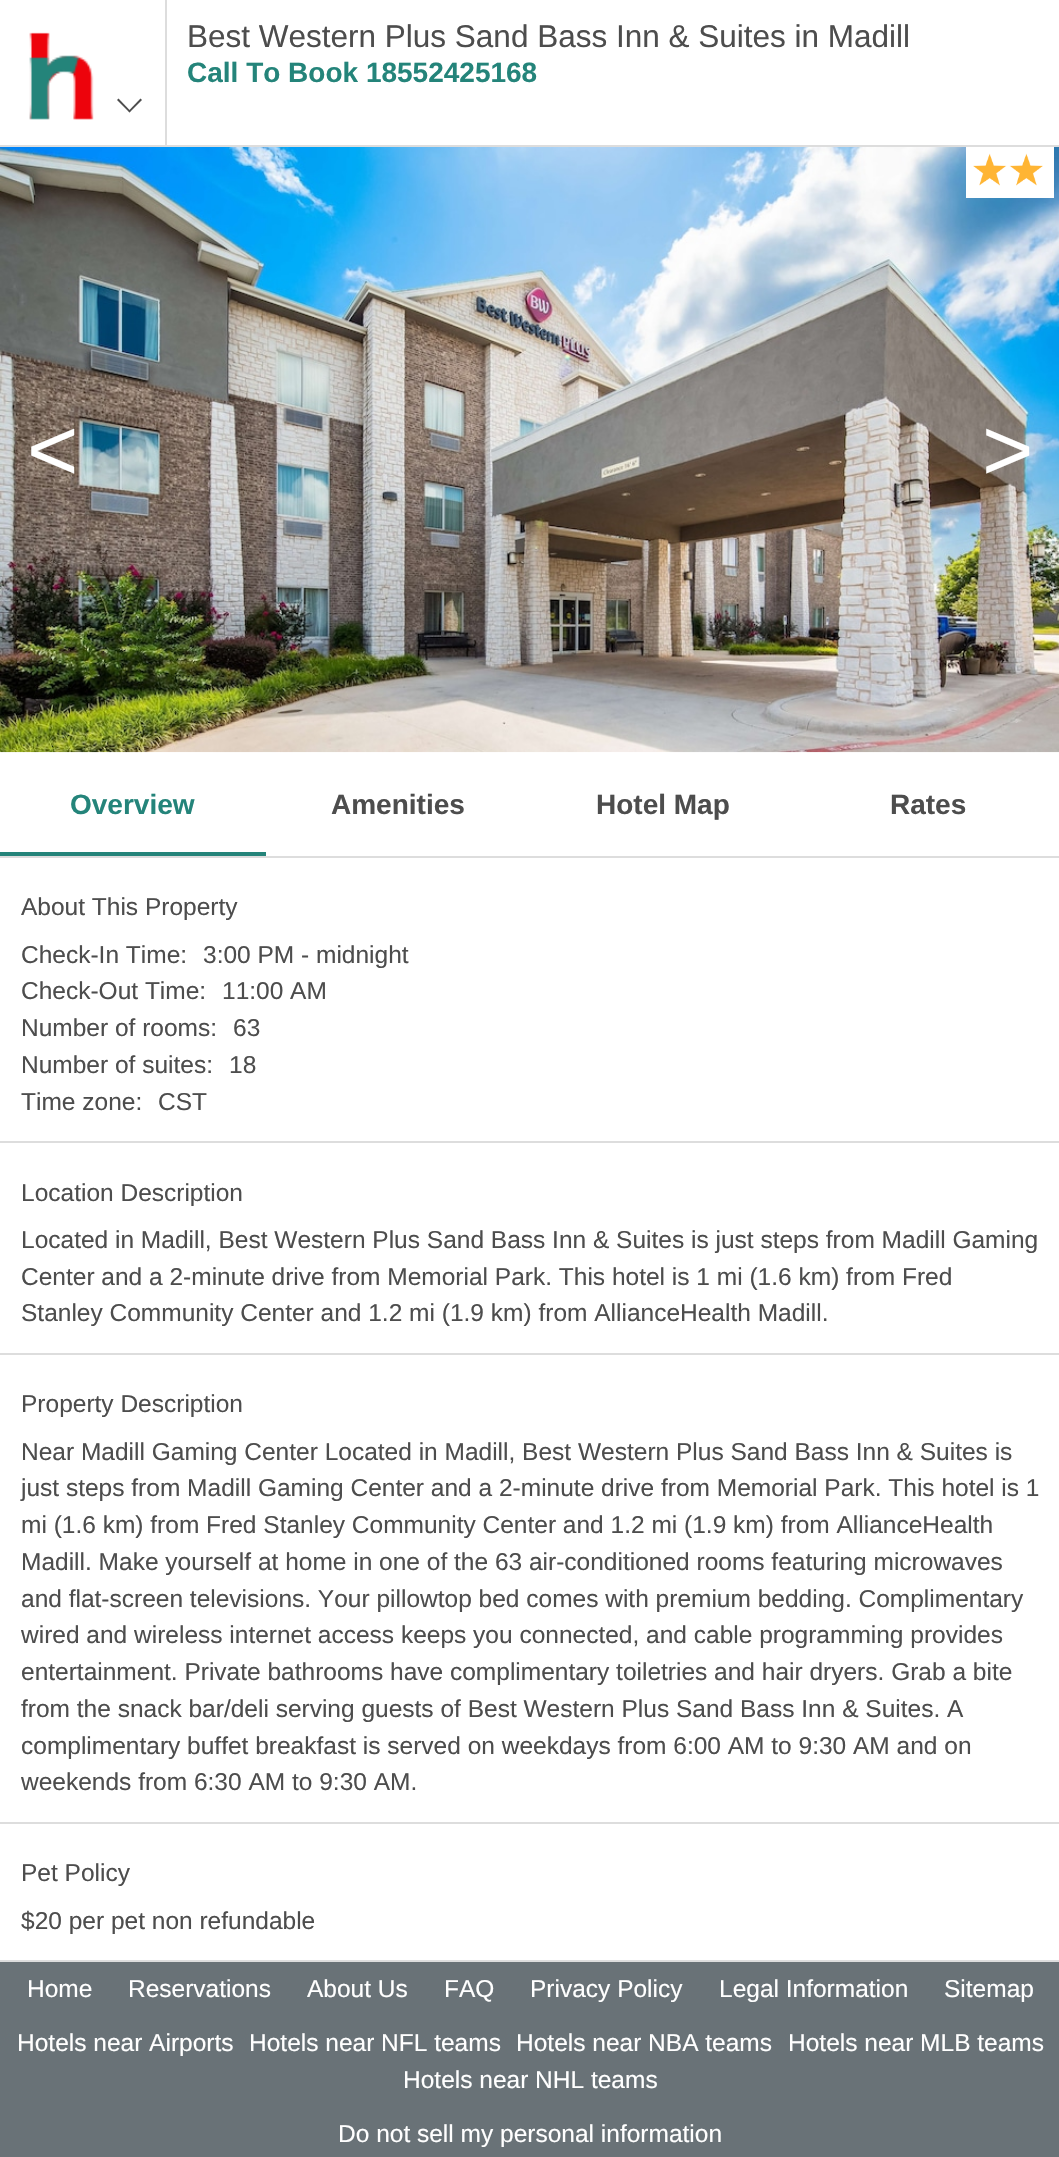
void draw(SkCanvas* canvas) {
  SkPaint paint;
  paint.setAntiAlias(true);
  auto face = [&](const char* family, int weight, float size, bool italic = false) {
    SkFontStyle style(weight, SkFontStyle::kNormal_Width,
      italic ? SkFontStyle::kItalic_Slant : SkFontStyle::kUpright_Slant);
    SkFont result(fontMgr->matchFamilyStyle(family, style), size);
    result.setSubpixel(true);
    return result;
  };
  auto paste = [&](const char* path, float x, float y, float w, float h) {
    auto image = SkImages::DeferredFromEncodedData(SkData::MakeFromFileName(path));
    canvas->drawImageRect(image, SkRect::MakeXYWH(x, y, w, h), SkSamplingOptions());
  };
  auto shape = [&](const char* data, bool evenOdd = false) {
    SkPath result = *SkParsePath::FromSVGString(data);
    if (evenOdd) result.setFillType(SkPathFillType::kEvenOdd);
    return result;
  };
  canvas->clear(0xffffffff);
  paint.setColor(0xffdddddd);
  canvas->drawRect(SkRect::MakeXYWH(0, 145, 1059, 2), paint);
  canvas->drawRect(SkRect::MakeXYWH(165, 0, 2, 145), paint);
  paste("img/1.png", 29, 32, 65, 88);
  paint.setColor(0xff4d4d4d);
  canvas->drawPath(shape("M142 100L129.5 112.5L128.5 111L140.5 98.5Z"), paint);
  canvas->drawPath(shape("M130.5 111L129.5 112.5L117 100L118.5 98.5Z"), paint);
  paste("img/4.png", 0, 147, 1059, 606);
  paint.setColor(0xffffffff);
  canvas->drawRect(SkRect::MakeXYWH(966, 147, 88, 51), paint);
  paste("img/2.png", 973, 153, 34, 33);
  paste("img/3.png", 1009, 153, 34, 33);
  {
    const struct { float x, y, w, h; SkColor color; } items[] = {
      {0, 856, 1059, 2, 0xffdddddd},
      {0, 852, 266, 4, 0xff24847a},
      {0, 1141, 1059, 2, 0xffdddddd},
      {0, 1353, 1059, 2, 0xffdddddd},
      {0, 1822, 1059, 2, 0xffdddddd},
      {0, 1960, 1059, 2, 0xffdddddd},
      {0, 1962, 1059, 195, 0xff697277},
    };
    for (auto [x, y, w, h, color] : items) {
      paint.setColor(color);
      canvas->drawRect(SkRect::MakeXYWH(x, y, w, h), paint);
    }
  }
  auto f0 = face("Liberation Sans", 400, 31.5f);
  paint.setColor(0xff4d4d4d);
  canvas->drawString("Best Western Plus Sand Bass Inn & Suites in Madill", 187, 47, f0, paint);
  auto f1 = face("Liberation Sans", 700, 28);
  paint.setColor(0xff24847a);
  canvas->drawString("Call To Book 18552425168", 187, 82, f1, paint);
  auto f2 = face("Liberation Sans", 400, 88);
  paint.setColor(0xffffffff);
  canvas->drawString("<", 27, 480, f2, paint);
  canvas->drawString(">", 982, 480, f2, paint);
  paint.setColor(0xff24847a);
  canvas->drawString("Overview", 70, 814, f1, paint);
  paint.setColor(0xff4d4d4d);
  {
    const struct { const char* s; float x, y; } items[] = {
      {"Amenities", 331, 814},
      {"Hotel Map", 596, 814},
      {"Rates", 890, 814},
    };
    for (auto [s, x, y] : items) {
      canvas->drawString(s, x, y, f1, paint);
    }
  }
  auto f3 = face("Liberation Sans", 400, 24.5f);
  {
    const struct { const char* s; float x, y; } items[] = {
      {"About This Property", 21, 915},
      {"Check-In Time:", 21, 963},
      {"3:00 PM - midnight", 203, 963},
      {"Check-Out Time:", 21, 999},
      {"11:00 AM", 222, 999},
      {"Number of rooms:", 21, 1036},
      {"63", 233, 1036},
      {"Number of suites:", 21, 1073},
      {"18", 229, 1073},
      {"Time zone:", 21, 1110},
      {"CST", 158, 1110},
      {"Location Description", 21, 1201},
      {"Located in Madill, Best Western Plus Sand Bass Inn & Suites is just steps from Madill Gaming", 21, 1248},
      {"Center and a 2-minute drive from Memorial Park. This hotel is 1 mi (1.6 km) from Fred", 21, 1285},
      {"Stanley Community Center and 1.2 mi (1.9 km) from AllianceHealth Madill.", 21, 1321},
      {"Property Description", 21, 1412},
      {"Near Madill Gaming Center Located in Madill, Best Western Plus Sand Bass Inn & Suites is", 21, 1460},
      {"just steps from Madill Gaming Center and a 2-minute drive from Memorial Park. This hotel is 1", 21, 1496},
      {"mi (1.6 km) from Fred Stanley Community Center and 1.2 mi (1.9 km) from AllianceHealth", 21, 1533},
      {"Madill. Make yourself at home in one of the 63 air-conditioned rooms featuring microwaves", 21, 1570},
      {"and flat-screen televisions. Your pillowtop bed comes with premium bedding. Complimentary", 21, 1607},
      {"wired and wireless internet access keeps you connected, and cable programming provides", 21, 1643},
      {"entertainment. Private bathrooms have complimentary toiletries and hair dryers. Grab a bite", 21, 1680},
      {"from the snack bar/deli serving guests of Best Western Plus Sand Bass Inn & Suites. A", 21, 1717},
      {"complimentary buffet breakfast is served on weekdays from 6:00 AM to 9:30 AM and on", 21, 1754},
      {"weekends from 6:30 AM to 9:30 AM.", 21, 1790},
      {"Pet Policy", 21, 1881},
      {"$20 per pet non refundable", 21, 1929},
    };
    for (auto [s, x, y] : items) {
      canvas->drawString(s, x, y, f3, paint);
    }
  }
  paint.setColor(0xffffffff);
  {
    const struct { const char* s; float x, y; } items[] = {
      {"Home", 27, 1997},
      {"Reservations", 128, 1997},
      {"About Us", 307, 1997},
      {"FAQ", 444, 1997},
      {"Privacy Policy", 530, 1997},
      {"Legal Information", 719, 1997},
      {"Sitemap", 944, 1997},
      {"Hotels near Airports", 17, 2051},
      {"Hotels near NFL teams", 249, 2051},
      {"Hotels near NBA teams", 516, 2051},
      {"Hotels near MLB teams", 788, 2051},
      {"Hotels near NHL teams", 403, 2088},
      {"Do not sell my personal information", 338, 2142},
    };
    for (auto [s, x, y] : items) {
      canvas->drawString(s, x, y, f3, paint);
    }
  }
}
